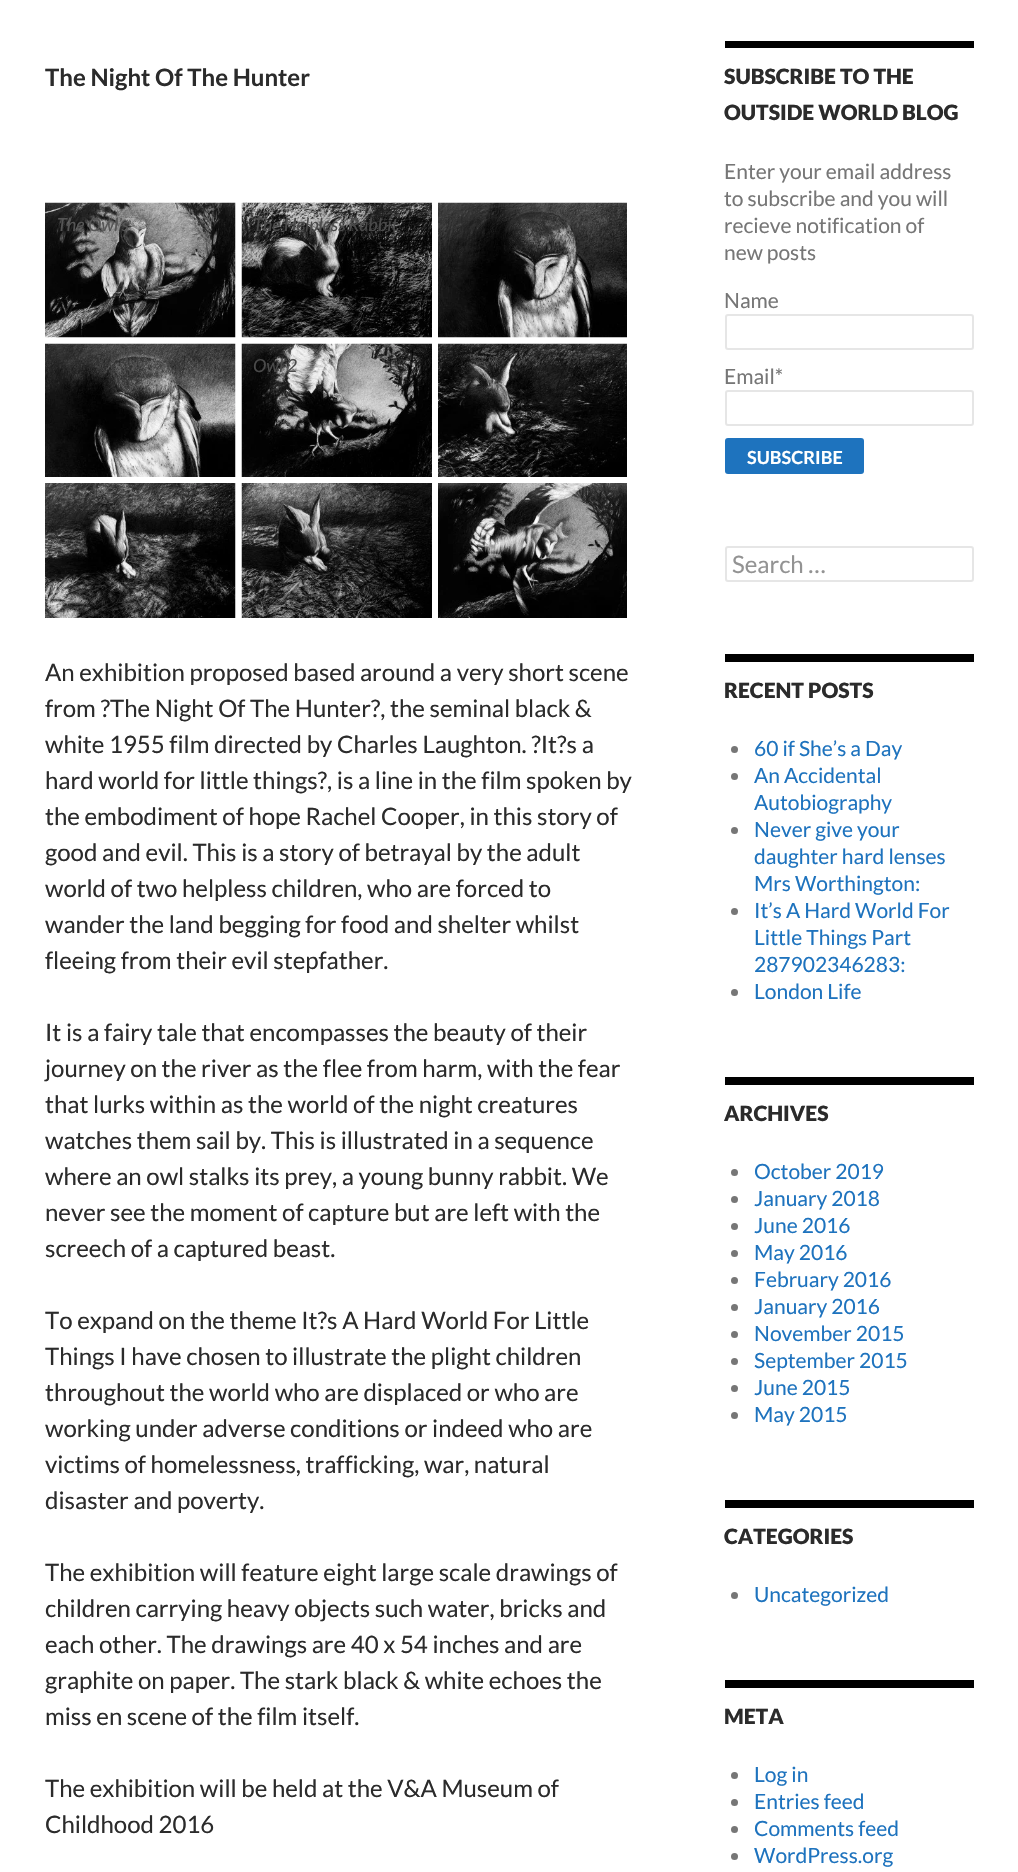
void draw(SkCanvas* canvas) {
  SkPaint paint;
  paint.setAntiAlias(true);
  auto face = [&](const char* family, int weight, float size, bool italic = false) {
    SkFontStyle style(weight, SkFontStyle::kNormal_Width,
      italic ? SkFontStyle::kItalic_Slant : SkFontStyle::kUpright_Slant);
    SkFont result(fontMgr->matchFamilyStyle(family, style), size);
    result.setSubpixel(true);
    return result;
  };
  auto paste = [&](const char* path, float x, float y, float w, float h) {
    auto image = SkImages::DeferredFromEncodedData(SkData::MakeFromFileName(path));
    canvas->drawImageRect(image, SkRect::MakeXYWH(x, y, w, h), SkSamplingOptions());
  };
  canvas->clear(0xffffffff);
  paste("img/1.png", 45, 202, 191, 136);
  paste("img/2.png", 241, 202, 191, 136);
  paste("img/3.png", 438, 202, 189, 136);
  paste("img/4.png", 45, 343, 191, 134);
  paste("img/5.png", 241, 343, 191, 134);
  paste("img/6.png", 438, 343, 189, 134);
  paste("img/7.png", 45, 483, 191, 135);
  paste("img/8.png", 241, 483, 191, 135);
  paste("img/9.png", 438, 483, 189, 135);
  paint.setColor(0xff000000);
  canvas->drawRect(SkRect::MakeXYWH(725, 41, 249, 7), paint);
  paint.setStroke(true);
  paint.setStrokeWidth(2);
  paint.setColor(0xffe6e6e6);
  canvas->drawRoundRect(SkRect::MakeXYWH(726, 315, 247, 34), 2, 2, paint);
  canvas->drawRoundRect(SkRect::MakeXYWH(726, 391, 247, 34), 2, 2, paint);
  paint.setStroke(false);
  paint.setColor(0xff1e73be);
  canvas->drawRoundRect(SkRect::MakeXYWH(725, 438, 139, 36), 3, 3, paint);
  paint.setStroke(true);
  paint.setColor(0xffe6e6e6);
  canvas->drawRoundRect(SkRect::MakeXYWH(726, 547, 247, 34), 2, 2, paint);
  paint.setStroke(false);
  paint.setColor(0xff000000);
  canvas->drawRect(SkRect::MakeXYWH(725, 654, 249, 8), paint);
  paint.setColor(0xff767676);
  canvas->drawCircle(734.5f, 749.5f, 3.5f, paint);
  canvas->drawCircle(734.5f, 776.5f, 3.5f, paint);
  canvas->drawCircle(734.5f, 830.5f, 3.5f, paint);
  canvas->drawCircle(734.5f, 911.5f, 3.5f, paint);
  canvas->drawCircle(734.5f, 992.5f, 3.5f, paint);
  paint.setColor(0xff000000);
  canvas->drawRect(SkRect::MakeXYWH(725, 1077, 249, 8), paint);
  paint.setColor(0xff767676);
  canvas->drawCircle(734.5f, 1172.5f, 3.5f, paint);
  canvas->drawCircle(734.5f, 1199.5f, 3.5f, paint);
  canvas->drawCircle(734.5f, 1226.5f, 3.5f, paint);
  canvas->drawCircle(734.5f, 1253.5f, 3.5f, paint);
  canvas->drawCircle(734.5f, 1280.5f, 3.5f, paint);
  canvas->drawCircle(734.5f, 1307.5f, 3.5f, paint);
  canvas->drawCircle(734.5f, 1334.5f, 3.5f, paint);
  canvas->drawCircle(734.5f, 1361.5f, 3.5f, paint);
  canvas->drawCircle(734.5f, 1388.5f, 3.5f, paint);
  canvas->drawCircle(734.5f, 1415.5f, 3.5f, paint);
  paint.setColor(0xff000000);
  canvas->drawRect(SkRect::MakeXYWH(725, 1500, 249, 8), paint);
  paint.setColor(0xff767676);
  canvas->drawCircle(734.5f, 1595.5f, 3.5f, paint);
  paint.setColor(0xff000000);
  canvas->drawRect(SkRect::MakeXYWH(725, 1680, 249, 8), paint);
  paint.setColor(0xff767676);
  canvas->drawCircle(734.5f, 1775.5f, 3.5f, paint);
  canvas->drawCircle(734.5f, 1802.5f, 3.5f, paint);
  canvas->drawCircle(734.5f, 1829.5f, 3.5f, paint);
  canvas->drawCircle(734.5f, 1856.5f, 3.5f, paint);
  auto f0 = face("Lato", 700, 24);
  paint.setColor(0xff2b2b2b);
  canvas->drawString("The Night Of The Hunter", 45, 86, f0, paint);
  auto f1 = face("Lato", 400, 18, true);
  paint.setColor(0xff555555);
  canvas->drawString("The Owl’s", 57, 231, f1, paint);
  paint.setColor(0xff4a4a4a);
  canvas->drawString("The Helpless Rabbit", 253, 231, f1, paint);
  canvas->drawString("Owl 2", 253, 372, f1, paint);
  auto f2 = face("Lato", 400, 24);
  paint.setColor(0xff2b2b2b);
  {
    const struct { const char* s; float x, y; } items[] = {
      {"An exhibition proposed based around a very short scene", 45, 681},
      {"from ?The Night Of The Hunter?, the seminal black &", 45, 717},
      {"white 1955 film directed by Charles Laughton. ?It?s a", 45, 753},
      {"hard world for little things?, is a line in the film spoken by", 45, 789},
      {"the embodiment of hope Rachel Cooper, in this story of", 45, 825},
      {"good and evil. This is a story of betrayal by the adult", 45, 861},
      {"world of two helpless children, who are forced to", 45, 897},
      {"wander the land begging for food and shelter whilst", 45, 933},
      {"fleeing from their evil stepfather.", 45, 969},
      {"It is a fairy tale that encompasses the beauty of their", 45, 1041},
      {"journey on the river as the flee from harm, with the fear", 45, 1077},
      {"that lurks within as the world of the night creatures", 45, 1113},
      {"watches them sail by. This is illustrated in a sequence", 45, 1149},
      {"where an owl stalks its prey, a young bunny rabbit. We", 45, 1185},
      {"never see the moment of capture but are left with the", 45, 1221},
      {"screech of a captured beast.", 45, 1257},
      {"To expand on the theme It?s A Hard World For Little", 45, 1329},
      {"Things I have chosen to illustrate the plight children", 45, 1365},
      {"throughout the world who are displaced or who are", 45, 1401},
      {"working under adverse conditions or indeed who are", 45, 1437},
      {"victims of homelessness, trafficking, war, natural", 45, 1473},
      {"disaster and poverty.", 45, 1509},
      {"The exhibition will feature eight large scale drawings of", 45, 1581},
      {"children carrying heavy objects such water, bricks and", 45, 1617},
      {"each other. The drawings are 40 x 54 inches and are", 45, 1653},
      {"graphite on paper. The stark black & white echoes the", 45, 1689},
      {"miss en scene of the film itself.", 45, 1725},
      {"The exhibition will be held at the V&A Museum of", 45, 1797},
      {"Childhood 2016", 45, 1833},
    };
    for (auto [s, x, y] : items) {
      canvas->drawString(s, x, y, f2, paint);
    }
  }
  auto f3 = face("Lato", 900, 21);
  canvas->drawString("SUBSCRIBE TO THE", 724, 84, f3, paint);
  canvas->drawString("OUTSIDE WORLD BLOG", 724, 120, f3, paint);
  auto f4 = face("Lato", 400, 21);
  paint.setColor(0xff767676);
  {
    const struct { const char* s; float x, y; } items[] = {
      {"Enter your email address", 724, 179},
      {"to subscribe and you will", 724, 206},
      {"recieve notification of", 724, 233},
      {"new posts", 724, 260},
      {"Name", 724, 308},
      {"Email*", 724, 384},
    };
    for (auto [s, x, y] : items) {
      canvas->drawString(s, x, y, f4, paint);
    }
  }
  auto f5 = face("Lato", 700, 18);
  paint.setColor(0xffffffff);
  canvas->drawString("SUBSCRIBE", 747, 464, f5, paint);
  paint.setColor(0xff939393);
  canvas->drawString("Search …", 732, 573, f2, paint);
  paint.setColor(0xff2b2b2b);
  canvas->drawString("RECENT POSTS", 724, 698, f3, paint);
  paint.setColor(0xff1e73be);
  {
    const struct { const char* s; float x, y; } items[] = {
      {"60 if She’s a Day", 754, 756},
      {"An Accidental", 754, 783},
      {"Autobiography", 754, 810},
      {"Never give your", 754, 837},
      {"daughter hard lenses", 754, 864},
      {"Mrs Worthington:", 754, 891},
      {"It’s A Hard World For", 754, 918},
      {"Little Things Part", 754, 945},
      {"287902346283:", 754, 972},
      {"London Life", 754, 999},
    };
    for (auto [s, x, y] : items) {
      canvas->drawString(s, x, y, f4, paint);
    }
  }
  paint.setColor(0xff2b2b2b);
  canvas->drawString("ARCHIVES", 724, 1121, f3, paint);
  paint.setColor(0xff1e73be);
  {
    const struct { const char* s; float x, y; } items[] = {
      {"October 2019", 754, 1179},
      {"January 2018", 754, 1206},
      {"June 2016", 754, 1233},
      {"May 2016", 754, 1260},
      {"February 2016", 754, 1287},
      {"January 2016", 754, 1314},
      {"November 2015", 754, 1341},
      {"September 2015", 754, 1368},
      {"June 2015", 754, 1395},
      {"May 2015", 754, 1422},
    };
    for (auto [s, x, y] : items) {
      canvas->drawString(s, x, y, f4, paint);
    }
  }
  paint.setColor(0xff2b2b2b);
  canvas->drawString("CATEGORIES", 724, 1544, f3, paint);
  paint.setColor(0xff1e73be);
  canvas->drawString("Uncategorized", 754, 1602, f4, paint);
  paint.setColor(0xff2b2b2b);
  canvas->drawString("META", 724, 1724, f3, paint);
  paint.setColor(0xff1e73be);
  {
    const struct { const char* s; float x, y; } items[] = {
      {"Log in", 754, 1782},
      {"Entries feed", 754, 1809},
      {"Comments feed", 754, 1836},
      {"WordPress.org", 754, 1863},
    };
    for (auto [s, x, y] : items) {
      canvas->drawString(s, x, y, f4, paint);
    }
  }
}
